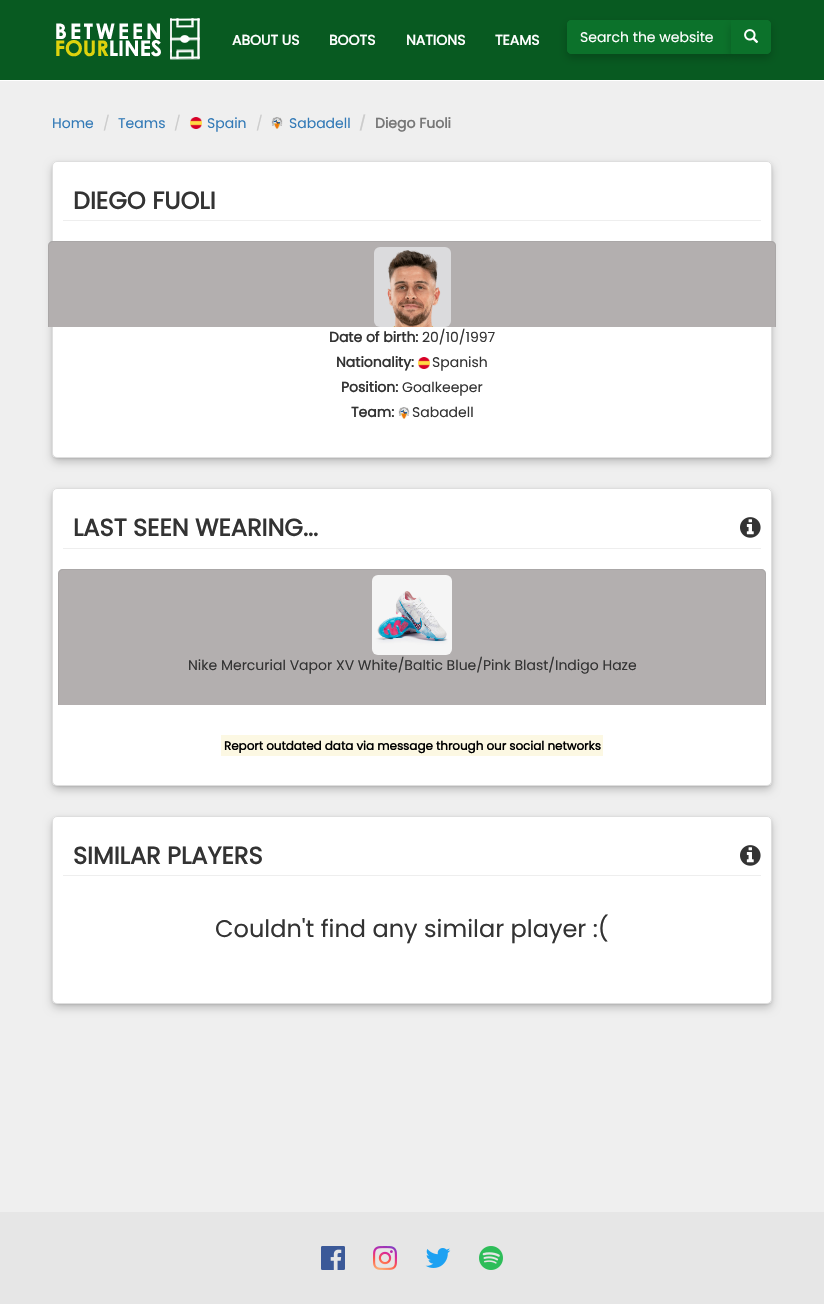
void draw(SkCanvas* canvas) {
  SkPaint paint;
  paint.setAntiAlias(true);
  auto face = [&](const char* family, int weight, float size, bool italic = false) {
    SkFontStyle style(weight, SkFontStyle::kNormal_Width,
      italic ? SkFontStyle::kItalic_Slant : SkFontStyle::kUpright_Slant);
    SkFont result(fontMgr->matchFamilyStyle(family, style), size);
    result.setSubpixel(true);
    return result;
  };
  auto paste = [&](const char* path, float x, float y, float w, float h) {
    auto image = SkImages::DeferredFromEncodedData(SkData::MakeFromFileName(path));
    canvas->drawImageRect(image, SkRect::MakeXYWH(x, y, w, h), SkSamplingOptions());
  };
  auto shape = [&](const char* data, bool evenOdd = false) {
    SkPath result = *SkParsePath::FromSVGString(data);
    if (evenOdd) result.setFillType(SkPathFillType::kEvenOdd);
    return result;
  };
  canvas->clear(0xffefefef);
  paint.setColor(0xff085a21);
  canvas->drawRect(SkRect::MakeXYWH(0, 0, 824, 80), paint);
  paint.setColor(0xffffffff);
  canvas->drawRect(SkRect::MakeXYWH(0, 80, 824, 1), paint);
  paste("img/1.png", 56, 18, 144, 42);
  paint.setColor(0x33000000);
  paint.setMaskFilter(SkMaskFilter::MakeBlur(kNormal_SkBlurStyle, 4));
  canvas->drawRoundRect(SkRect::MakeXYWH(567, 24, 165, 34), 4, 4, paint);
  paint.setMaskFilter(nullptr);
  paint.setColor(0xff0c722b);
  canvas->drawPath(shape("M571 20.5H731.5V53.5H571C569 53.5 567.5 52 567.5 50V24C567.5 22 569 20.5 571 20.5Z"), paint);
  paint.setStroke(true);
  paint.setStrokeWidth(1);
  canvas->drawPath(shape("M571 20.5H731.5V53.5H571C569 53.5 567.5 52 567.5 50V24C567.5 22 569 20.5 571 20.5Z"), paint);
  paint.setStroke(false);
  paint.setColor(0x33000000);
  paint.setMaskFilter(SkMaskFilter::MakeBlur(kNormal_SkBlurStyle, 4));
  canvas->drawRoundRect(SkRect::MakeXYWH(731, 24, 40, 34), 4, 4, paint);
  paint.setMaskFilter(nullptr);
  paint.setColor(0xff0c722b);
  canvas->drawPath(shape("M731.5 20.5H767C769 20.5 770.5 22 770.5 24V50C770.5 52 769 53.5 767 53.5H731.5Z"), paint);
  paint.setStroke(true);
  canvas->drawPath(shape("M731.5 20.5H767C769 20.5 770.5 22 770.5 24V50C770.5 52 769 53.5 767 53.5H731.5Z"), paint);
  paste("img/2.png", 744, 29, 15, 14);
  paste("img/3.png", 190, 117, 12, 12);
  paste("img/4.png", 271, 117, 12, 12);
  paint.setStroke(false);
  paint.setColor(0x33000000);
  paint.setMaskFilter(SkMaskFilter::MakeBlur(kNormal_SkBlurStyle, 4));
  canvas->drawRoundRect(SkRect::MakeXYWH(52, 165, 720, 297), 5, 5, paint);
  paint.setMaskFilter(nullptr);
  paint.setColor(0x1a000000);
  paint.setMaskFilter(SkMaskFilter::MakeBlur(kNormal_SkBlurStyle, 1));
  canvas->drawRoundRect(SkRect::MakeXYWH(52, 162, 720, 297), 5, 5, paint);
  paint.setMaskFilter(nullptr);
  paint.setColor(0xffffffff);
  canvas->drawRoundRect(SkRect::MakeXYWH(52, 161, 720, 297), 5, 5, paint);
  paint.setStroke(true);
  paint.setColor(0x4f969696);
  canvas->drawRoundRect(SkRect::MakeXYWH(52.5f, 161.5f, 719, 296), 4.5f, 4.5f, paint);
  paint.setStroke(false);
  paint.setColor(0xffeeeeee);
  canvas->drawRect(SkRect::MakeXYWH(63, 220, 698, 1), paint);
  paint.setColor(0xffb3afaf);
  canvas->drawPath(shape("M53 241H771C774 241 776 243 776 246V327H48V246C48 243 50 241 53 241Z"), paint);
  paint.setColor(0x4f969696);
  canvas->drawPath(shape("M53 241H771C774 241 776 243 776 246V327H48V246C48 243 50 241 53 241ZM53 242H771C773 242 775 244 775 246V327H49V246C49 244 51 242 53 242Z", true), paint);
  paint.setColor(0xffdbdbdd);
  canvas->drawRoundRect(SkRect::MakeXYWH(374, 247, 77, 80), 6, 6, paint);
  paste("img/5.png", 387, 250, 54, 77);
  paste("img/6.png", 418, 357, 12, 12);
  paste("img/7.png", 398, 407, 12, 12);
  paint.setColor(0x33000000);
  paint.setMaskFilter(SkMaskFilter::MakeBlur(kNormal_SkBlurStyle, 4));
  canvas->drawRoundRect(SkRect::MakeXYWH(52, 492, 720, 298), 5, 5, paint);
  paint.setMaskFilter(nullptr);
  paint.setColor(0x1a000000);
  paint.setMaskFilter(SkMaskFilter::MakeBlur(kNormal_SkBlurStyle, 1));
  canvas->drawRoundRect(SkRect::MakeXYWH(52, 489, 720, 298), 5, 5, paint);
  paint.setMaskFilter(nullptr);
  paint.setColor(0xffffffff);
  canvas->drawRoundRect(SkRect::MakeXYWH(52, 488, 720, 298), 5, 5, paint);
  paint.setStroke(true);
  paint.setColor(0x4f969696);
  canvas->drawRoundRect(SkRect::MakeXYWH(52.5f, 488.5f, 719, 297), 4.5f, 4.5f, paint);
  paint.setStroke(false);
  paint.setColor(0xffeeeeee);
  canvas->drawRect(SkRect::MakeXYWH(63, 548, 698, 1), paint);
  paste("img/8.png", 740, 517, 21, 21);
  paint.setColor(0xffb3afaf);
  canvas->drawPath(shape("M63 569H761C764 569 766 571 766 574V705H58V574C58 571 60 569 63 569Z"), paint);
  paint.setColor(0x4f969696);
  canvas->drawPath(shape("M63 569H761C764 569 766 571 766 574V705H58V574C58 571 60 569 63 569ZM63 570H761C763 570 765 572 765 574V705H59V574C59 572 61 570 63 570Z", true), paint);
  paste("img/9.png", 372, 575, 80, 80);
  paint.setColor(0xfffcf8e3);
  canvas->drawRect(SkRect::MakeXYWH(221, 735, 382, 21), paint);
  paint.setColor(0x33000000);
  paint.setMaskFilter(SkMaskFilter::MakeBlur(kNormal_SkBlurStyle, 4));
  canvas->drawRoundRect(SkRect::MakeXYWH(52, 820, 720, 188), 5, 5, paint);
  paint.setMaskFilter(nullptr);
  paint.setColor(0x1a000000);
  paint.setMaskFilter(SkMaskFilter::MakeBlur(kNormal_SkBlurStyle, 1));
  canvas->drawRoundRect(SkRect::MakeXYWH(52, 817, 720, 188), 5, 5, paint);
  paint.setMaskFilter(nullptr);
  paint.setColor(0xffffffff);
  canvas->drawRoundRect(SkRect::MakeXYWH(52, 816, 720, 188), 5, 5, paint);
  paint.setStroke(true);
  paint.setColor(0x4f969696);
  canvas->drawRoundRect(SkRect::MakeXYWH(52.5f, 816.5f, 719, 187), 4.5f, 4.5f, paint);
  paint.setStroke(false);
  paint.setColor(0xffeeeeee);
  canvas->drawRect(SkRect::MakeXYWH(63, 875, 698, 1), paint);
  paste("img/8.png", 740, 845, 21, 21);
  paint.setColor(0xffe6e6e6);
  canvas->drawRect(SkRect::MakeXYWH(0, 1212, 824, 92), paint);
  paste("img/10.png", 321, 1246, 24, 24);
  paste("img/11.png", 373, 1246, 24, 24);
  paste("img/12.png", 425, 1248, 26, 20);
  paste("img/13.png", 479, 1246, 24, 24);
  auto f0 = face("Poppins", 700, 14);
  paint.setColor(0xffffffff);
  {
    const struct { const char* s; float x, y; } items[] = {
      {"ABOUT US", 232, 45},
      {"BOOTS", 329, 45},
      {"NATIONS", 406, 45},
      {"TEAMS", 495, 45},
    };
    for (auto [s, x, y] : items) {
      canvas->drawString(s, x, y, f0, paint);
    }
  }
  auto f1 = face("Poppins", 400, 14);
  canvas->drawString("Search the website", 580, 42, f1, paint);
  paint.setColor(0xff337ab7);
  canvas->drawString("Home", 52, 128, f1, paint);
  paint.setColor(0xffcccccc);
  canvas->drawString("/", 103, 128, f1, paint);
  paint.setColor(0xff337ab7);
  canvas->drawString("Teams", 118, 128, f1, paint);
  paint.setColor(0xffcccccc);
  canvas->drawString("/", 174, 128, f1, paint);
  paint.setColor(0xff337ab7);
  canvas->drawString("Spain", 207, 128, f1, paint);
  paint.setColor(0xffcccccc);
  canvas->drawString("/", 256, 128, f1, paint);
  paint.setColor(0xff337ab7);
  canvas->drawString("Sabadell", 289, 128, f1, paint);
  paint.setColor(0xffcccccc);
  canvas->drawString("/", 359, 128, f0, paint);
  paint.setColor(0xff777777);
  canvas->drawString("Diego Fuoli", 375, 128, f0, paint);
  auto f2 = face("Poppins", 700, 24);
  paint.setColor(0xff333333);
  canvas->drawString("DIEGO FUOLI", 73, 209, f2, paint);
  canvas->drawString("Date of birth:", 329, 342, f0, paint);
  canvas->drawString("20/10/1997", 422, 342, f1, paint);
  canvas->drawString("Nationality:", 336, 367, f0, paint);
  canvas->drawString("Spanish", 432, 367, f1, paint);
  canvas->drawString("Position:", 341, 392, f0, paint);
  canvas->drawString("Goalkeeper", 402, 392, f1, paint);
  canvas->drawString("Team:", 351, 417, f0, paint);
  canvas->drawString("Sabadell", 412, 417, f1, paint);
  canvas->drawString("LAST SEEN WEARING...", 73, 536, f2, paint);
  canvas->drawString("Nike Mercurial Vapor XV White/Baltic Blue/Pink Blast/Indigo Haze", 188, 670, f1, paint);
  auto f3 = face("Poppins", 700, 11.9f);
  paint.setColor(0xff000000);
  canvas->drawString("Report outdated data via message through our social networks", 224, 750, f3, paint);
  paint.setColor(0xff333333);
  canvas->drawString("SIMILAR PLAYERS", 73, 864, f2, paint);
  auto f4 = face("Poppins", 400, 24);
  canvas->drawString("Couldn't find any similar player :(", 215, 937, f4, paint);
}
